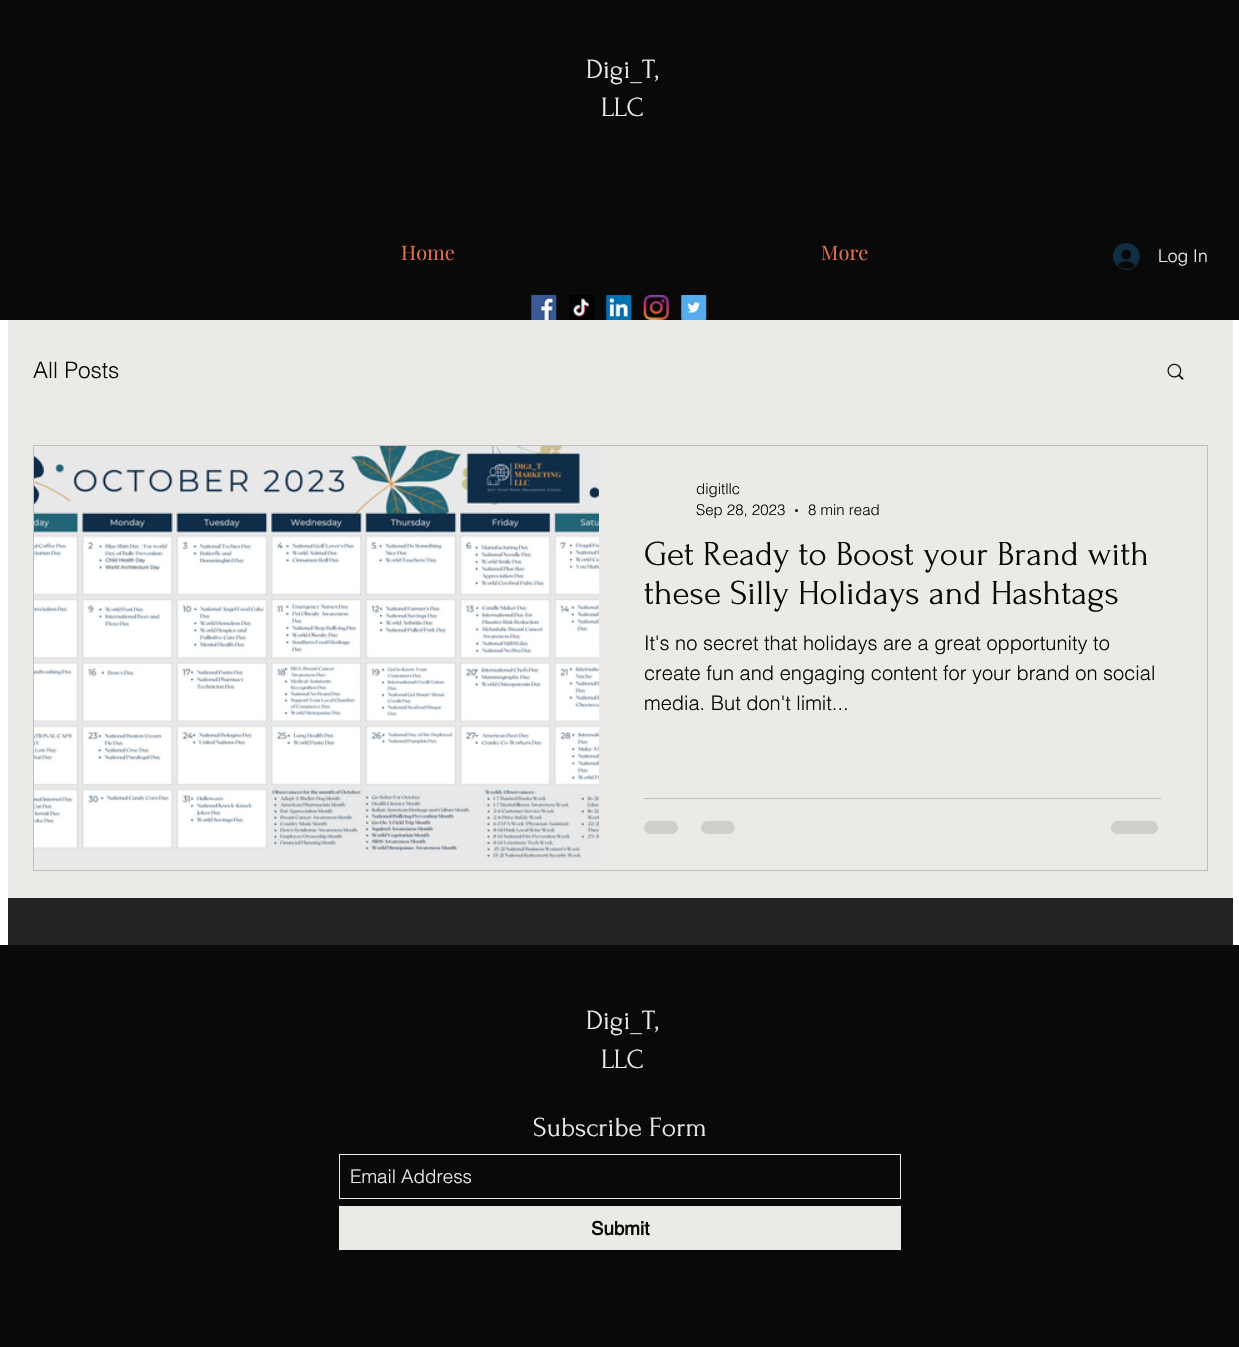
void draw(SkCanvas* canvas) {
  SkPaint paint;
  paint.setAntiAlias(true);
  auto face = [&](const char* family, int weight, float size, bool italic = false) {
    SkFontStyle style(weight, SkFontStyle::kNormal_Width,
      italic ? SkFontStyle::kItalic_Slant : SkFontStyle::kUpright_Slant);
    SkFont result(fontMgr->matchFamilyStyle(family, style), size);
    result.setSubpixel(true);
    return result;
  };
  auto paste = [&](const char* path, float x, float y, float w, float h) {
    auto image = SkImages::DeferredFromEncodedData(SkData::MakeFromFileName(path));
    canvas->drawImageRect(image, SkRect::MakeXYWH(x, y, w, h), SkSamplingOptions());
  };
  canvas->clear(0xffffffff);
  paint.setColor(0xff090909);
  canvas->drawRect(SkRect::MakeXYWH(0, 0, 1239, 320), paint);
  paste("img/1.png", 1113, 243, 27, 27);
  paste("img/2.png", 531, 295, 26, 25);
  paste("img/3.png", 569, 295, 25, 25);
  paste("img/4.png", 606, 295, 26, 25);
  paste("img/5.png", 643, 295, 26, 25);
  paste("img/6.png", 681, 295, 26, 25);
  paint.setColor(0xffebeae6);
  canvas->drawRect(SkRect::MakeXYWH(8, 320, 1225, 578), paint);
  paste("img/7.png", 1167, 363, 17, 17);
  paint.setStroke(true);
  paint.setStrokeWidth(1);
  paint.setColor(0xffc0bfbe);
  canvas->drawRect(SkRect::MakeXYWH(33.5f, 445.5f, 1174, 425), paint);
  paste("img/8.png", 34, 446, 565, 424);
  paint.setStroke(false);
  paint.setColor(0xff090909);
  canvas->drawCircle(796.5f, 510.5f, 1.5f, paint);
  paint.setColor(0xffbebdba);
  canvas->drawRect(SkRect::MakeXYWH(644, 798, 517, 1), paint);
  paint.setColor(0xffd0cfcb);
  canvas->drawRoundRect(SkRect::MakeXYWH(644, 821, 34, 13), 6.5f, 6.5f, paint);
  canvas->drawRoundRect(SkRect::MakeXYWH(701, 821, 34, 13), 6.5f, 6.5f, paint);
  canvas->drawRoundRect(SkRect::MakeXYWH(1111, 821, 47, 13), 6.5f, 6.5f, paint);
  paint.setColor(0xff232323);
  canvas->drawRect(SkRect::MakeXYWH(8, 898, 1225, 47), paint);
  paint.setColor(0xff090909);
  canvas->drawRect(SkRect::MakeXYWH(0, 945, 1239, 402), paint);
  paint.setStroke(true);
  paint.setColor(0xffebeae6);
  canvas->drawRect(SkRect::MakeXYWH(339.5f, 1154.5f, 561, 44), paint);
  paint.setStroke(false);
  canvas->drawRect(SkRect::MakeXYWH(339, 1206, 562, 44), paint);
  auto f0 = face("Forum", 400, 27.5f);
  canvas->drawString("Digi_T,", 586, 78, f0, paint);
  canvas->drawString("LLC", 601, 116, f0, paint);
  auto f1 = face("Playfair Display", 400, 20);
  paint.setColor(0xffe56e4e);
  canvas->drawString("Home", 401, 260, f1, paint);
  canvas->drawString("More", 821, 260, f1, paint);
  auto f2 = face("helvetica", 300, 17.5f);
  paint.setColor(0xffebeae6);
  canvas->drawString("Log In", 1158, 262, f2, paint);
  auto f3 = face("helvetica", 300, 22.5f);
  paint.setColor(0xff090909);
  canvas->drawString("All Posts", 33, 378, f3, paint);
  auto f4 = face("helvetica", 300, 15);
  {
    const struct { const char* s; float x, y; } items[] = {
      {"digitllc", 696, 494},
      {"Sep 28, 2023", 696, 515},
      {"8 min read", 808, 515},
    };
    for (auto [s, x, y] : items) {
      canvas->drawString(s, x, y, f4, paint);
    }
  }
  auto f5 = face("Forum", 400, 35);
  canvas->drawString("Get Ready to Boost your Brand with", 644, 565, f5, paint);
  canvas->drawString("these Silly Holidays and Hashtags", 644, 604, f5, paint);
  auto f6 = face("helvetica", 300, 20);
  {
    const struct { const char* s; float x, y; } items[] = {
      {"It's no secret that holidays are a great opportunity to", 644, 650},
      {"create fun and engaging content for your brand on social", 644, 680},
      {"media. But don't limit...", 644, 710},
    };
    for (auto [s, x, y] : items) {
      canvas->drawString(s, x, y, f6, paint);
    }
  }
  paint.setColor(0xffebeae6);
  {
    const struct { const char* s; float x, y; } items[] = {
      {"Digi_T,", 586, 1029},
      {"LLC", 601, 1068},
      {"Subscribe Form", 533, 1136},
    };
    for (auto [s, x, y] : items) {
      canvas->drawString(s, x, y, f0, paint);
    }
  }
  auto f7 = face("helvetica", 300, 18.75f);
  canvas->drawString("Email Address", 350, 1183, f7, paint);
  auto f8 = face("helvetica", 700, 18.75f);
  paint.setColor(0xff090909);
  canvas->drawString("Submit", 591, 1235, f8, paint);
}
